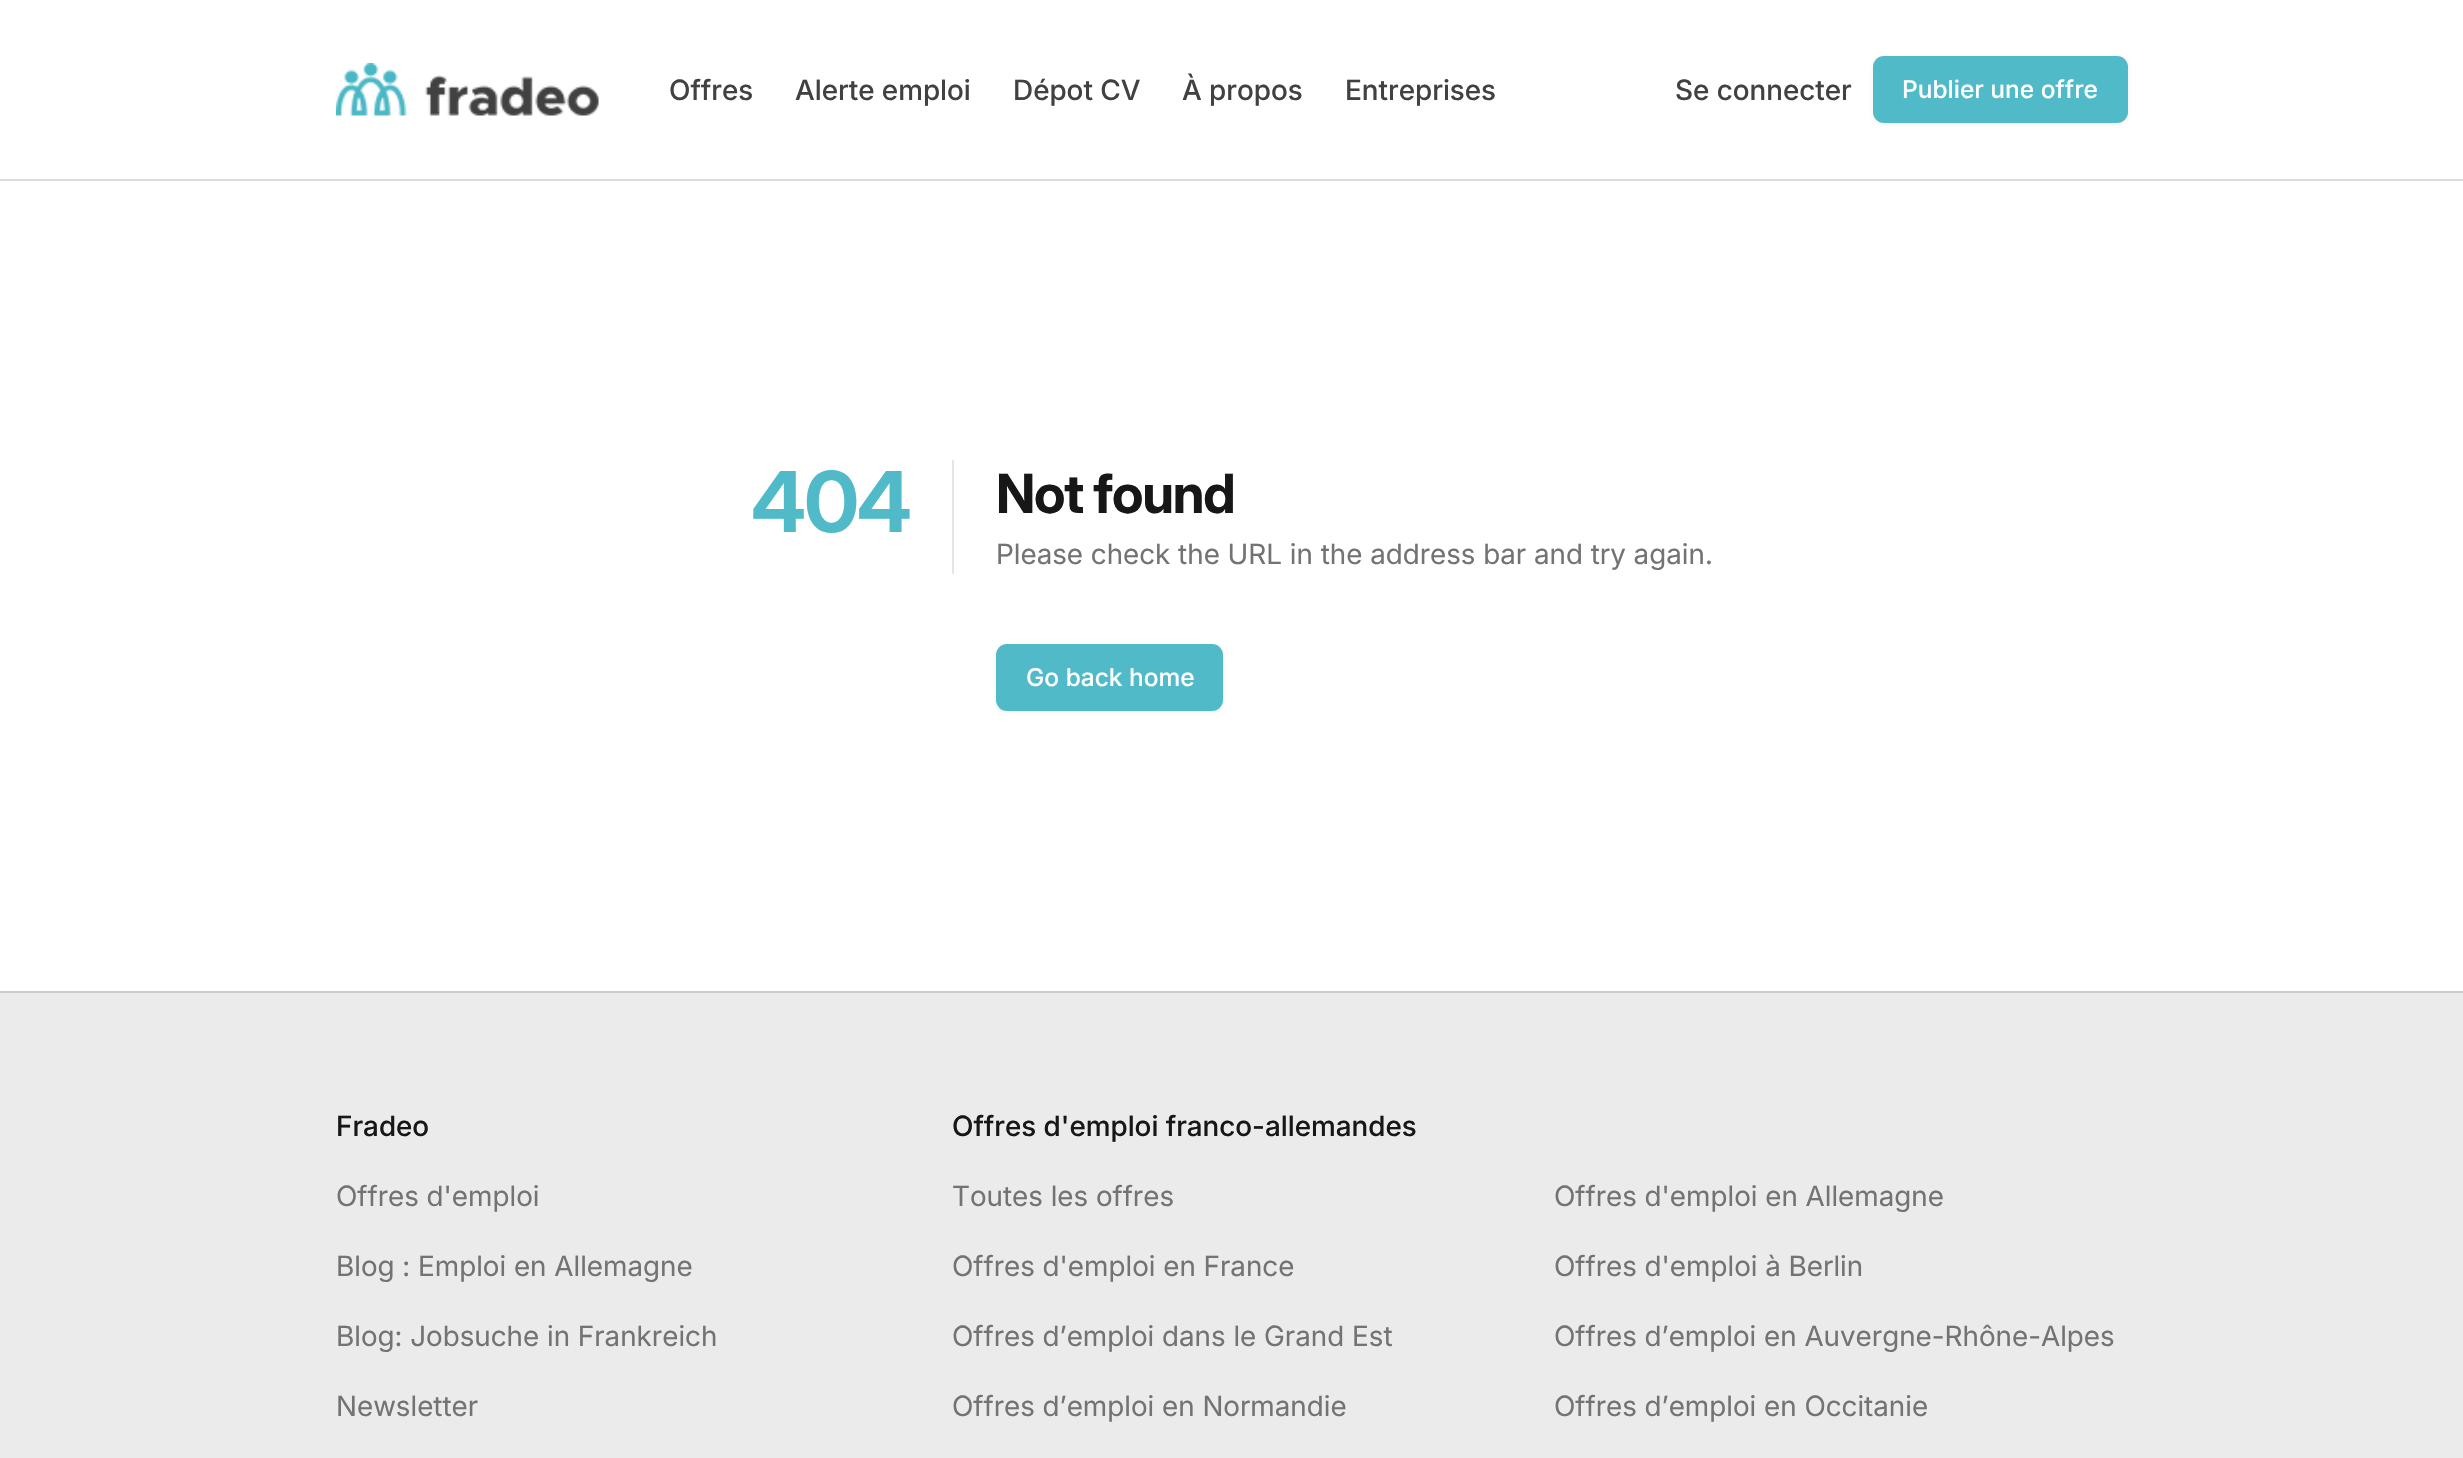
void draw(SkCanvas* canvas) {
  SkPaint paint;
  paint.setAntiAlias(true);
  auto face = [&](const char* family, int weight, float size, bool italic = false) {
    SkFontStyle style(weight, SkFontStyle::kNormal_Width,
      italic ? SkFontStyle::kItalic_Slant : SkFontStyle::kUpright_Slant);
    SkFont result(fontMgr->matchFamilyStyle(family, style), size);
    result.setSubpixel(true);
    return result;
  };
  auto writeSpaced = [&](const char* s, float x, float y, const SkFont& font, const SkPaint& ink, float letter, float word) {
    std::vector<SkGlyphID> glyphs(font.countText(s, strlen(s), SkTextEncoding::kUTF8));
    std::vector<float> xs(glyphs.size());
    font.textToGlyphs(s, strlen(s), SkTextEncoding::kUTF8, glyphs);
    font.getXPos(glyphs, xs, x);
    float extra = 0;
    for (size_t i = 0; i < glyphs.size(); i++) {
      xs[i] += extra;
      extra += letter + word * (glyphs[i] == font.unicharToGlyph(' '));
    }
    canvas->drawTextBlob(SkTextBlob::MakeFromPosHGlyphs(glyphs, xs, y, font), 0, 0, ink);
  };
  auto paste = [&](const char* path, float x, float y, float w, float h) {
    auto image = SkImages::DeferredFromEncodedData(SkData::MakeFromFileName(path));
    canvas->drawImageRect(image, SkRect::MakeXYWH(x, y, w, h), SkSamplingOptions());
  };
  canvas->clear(0xffffffff);
  paint.setColor(0xffdcdcdc);
  canvas->drawRect(SkRect::MakeXYWH(0, 179, 2463, 2), paint);
  paste("img/1.png", 336, 63, 263, 53);
  paint.setColor(0x0d000000);
  paint.setMaskFilter(SkMaskFilter::MakeBlur(kNormal_SkBlurStyle, 2));
  canvas->drawRoundRect(SkRect::MakeXYWH(1873, 58, 255, 66), 11, 11, paint);
  paint.setMaskFilter(nullptr);
  paint.setColor(0xff50bac8);
  canvas->drawRoundRect(SkRect::MakeXYWH(1873, 56, 255, 67), 11, 11, paint);
  paint.setColor(0xffe5e5e5);
  canvas->drawRect(SkRect::MakeXYWH(952, 460, 2, 114), paint);
  paint.setColor(0x0d000000);
  paint.setMaskFilter(SkMaskFilter::MakeBlur(kNormal_SkBlurStyle, 2));
  canvas->drawRoundRect(SkRect::MakeXYWH(996, 646, 227, 66), 11, 11, paint);
  paint.setMaskFilter(nullptr);
  paint.setColor(0xff50bac8);
  canvas->drawRoundRect(SkRect::MakeXYWH(996, 644, 227, 67), 11, 11, paint);
  paint.setColor(0xffebebeb);
  canvas->drawRect(SkRect::MakeXYWH(0, 993, 2463, 465), paint);
  paint.setColor(0xffcbcbcb);
  canvas->drawRect(SkRect::MakeXYWH(0, 991, 2463, 2), paint);
  auto f0 = face("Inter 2", 500, 28);
  paint.setColor(0xff414141);
  {
    const struct { const char* s; float x, y; } items[] = {
      {"Offres", 669, 100},
      {"Alerte emploi", 795, 100},
      {"Dépot CV", 1013, 100},
      {"À propos", 1182, 100},
      {"Entreprises", 1345, 100},
      {"Se connecter", 1675, 100},
    };
    for (auto [s, x, y] : items) {
      canvas->drawString(s, x, y, f0, paint);
    }
  }
  auto f1 = face("Inter", 500, 24.5f);
  paint.setColor(0xffffffff);
  canvas->drawString("Publier une offre", 1902, 98, f1, paint);
  auto f2 = face("Inter", 700, 84);
  paint.setColor(0xff50bac8);
  writeSpaced("404", 751, 532, f2, paint, -2, 0);
  auto f3 = face("Inter 2", 700, 54);
  paint.setColor(0xff171717);
  writeSpaced("Not found", 996, 513, f3, paint, -1.25f, 0);
  auto f4 = face("Inter", 400, 28);
  paint.setColor(0xff737373);
  canvas->drawString("Please check the URL in the address bar and try again.", 996, 564, f4, paint);
  paint.setColor(0xffffffff);
  canvas->drawString("Go back home", 1026, 686, f1, paint);
  paint.setColor(0xff171717);
  canvas->drawString("Fradeo", 336, 1136, f0, paint);
  paint.setColor(0xff737373);
  {
    const struct { const char* s; float x, y; } items[] = {
      {"Offres d'emploi", 336, 1206},
      {"Blog : Emploi en Allemagne", 336, 1276},
      {"Blog: Jobsuche in Frankreich", 336, 1346},
      {"Newsletter", 336, 1416},
    };
    for (auto [s, x, y] : items) {
      canvas->drawString(s, x, y, f4, paint);
    }
  }
  paint.setColor(0xff171717);
  canvas->drawString("Offres d'emploi franco-allemandes", 952, 1136, f0, paint);
  paint.setColor(0xff737373);
  {
    const struct { const char* s; float x, y; } items[] = {
      {"Toutes les offres", 952, 1206},
      {"Offres d'emploi en Allemagne", 1554, 1206},
      {"Offres d'emploi en France", 952, 1276},
      {"Offres d'emploi à Berlin", 1554, 1276},
      {"Offres d’emploi dans le Grand Est", 952, 1346},
      {"Offres d’emploi en Auvergne-Rhône-Alpes", 1554, 1346},
      {"Offres d’emploi en Normandie", 952, 1416},
      {"Offres d’emploi en Occitanie", 1554, 1416},
    };
    for (auto [s, x, y] : items) {
      canvas->drawString(s, x, y, f4, paint);
    }
  }
}
